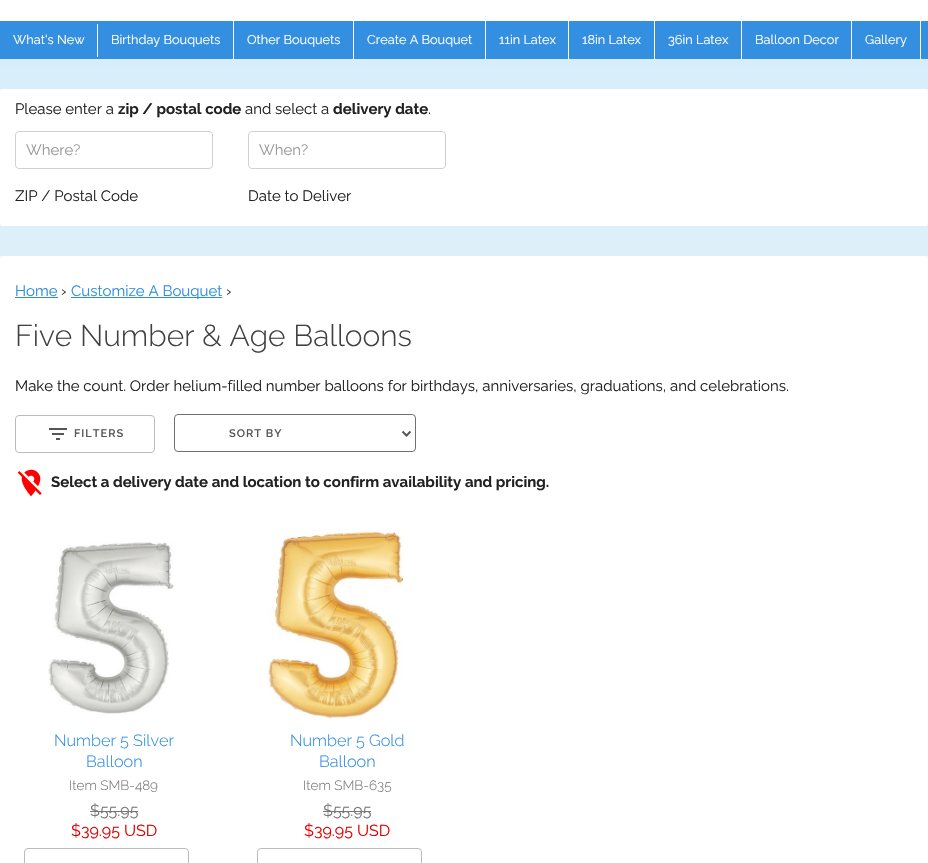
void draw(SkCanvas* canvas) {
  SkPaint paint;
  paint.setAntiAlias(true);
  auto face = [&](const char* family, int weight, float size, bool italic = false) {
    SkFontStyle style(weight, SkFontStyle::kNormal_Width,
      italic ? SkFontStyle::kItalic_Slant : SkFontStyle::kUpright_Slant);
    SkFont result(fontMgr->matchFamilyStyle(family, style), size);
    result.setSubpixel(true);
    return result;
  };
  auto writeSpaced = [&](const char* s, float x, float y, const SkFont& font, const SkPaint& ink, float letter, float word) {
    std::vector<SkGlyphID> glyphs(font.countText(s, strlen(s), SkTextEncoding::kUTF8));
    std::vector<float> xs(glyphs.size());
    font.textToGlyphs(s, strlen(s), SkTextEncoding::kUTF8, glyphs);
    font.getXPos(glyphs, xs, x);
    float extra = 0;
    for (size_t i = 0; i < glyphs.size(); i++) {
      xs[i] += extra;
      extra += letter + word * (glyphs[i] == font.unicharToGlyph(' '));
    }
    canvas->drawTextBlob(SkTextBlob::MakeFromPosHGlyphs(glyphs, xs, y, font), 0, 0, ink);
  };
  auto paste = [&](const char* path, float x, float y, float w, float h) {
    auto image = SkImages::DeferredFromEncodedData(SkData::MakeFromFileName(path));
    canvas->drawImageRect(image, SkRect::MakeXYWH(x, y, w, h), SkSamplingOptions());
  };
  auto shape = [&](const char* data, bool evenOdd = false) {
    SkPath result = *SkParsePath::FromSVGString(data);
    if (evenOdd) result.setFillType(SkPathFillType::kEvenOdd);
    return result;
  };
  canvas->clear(0xffffffff);
  {
    const SkColor colors[] = {0xffd2ebf9, 0xfffeffff};
    const float stops[] = {0, 1};
    const SkPoint ends[] = {{464, -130}, {464, 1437}};
    paint.setShader(SkGradientShader::MakeLinear(ends, colors, stops, 2, SkTileMode::kClamp));
    paint.setAlpha(255);
  }
  canvas->drawRect(SkRect::MakeXYWH(0, 59, 928, 199), paint);
  paint.setShader(nullptr);
  {
    const struct { float x, y, w, h; SkColor color; } items[] = {
      {0, 21, 928, 38, 0xff348fe0},
      {97, 24, 1, 33, 0xffffffff},
      {233, 21, 1, 38, 0xffffffff},
      {353, 21, 1, 38, 0xffffffff},
      {485, 21, 1, 38, 0xffffffff},
      {568, 21, 1, 38, 0xffffffff},
      {654, 21, 1, 38, 0xffffffff},
      {741, 21, 1, 38, 0xffffffff},
      {851, 21, 1, 38, 0xffffffff},
      {920, 21, 1, 38, 0xffffffff},
    };
    for (auto [x, y, w, h, color] : items) {
      paint.setColor(color);
      canvas->drawRect(SkRect::MakeXYWH(x, y, w, h), paint);
    }
  }
  canvas->drawRoundRect(SkRect::MakeXYWH(0, 89, 928, 137), 2, 2, paint);
  paint.setStroke(true);
  paint.setStrokeWidth(1);
  paint.setColor(0xffd1d1d1);
  canvas->drawRoundRect(SkRect::MakeXYWH(15.5f, 131.5f, 197, 37), 3.5f, 3.5f, paint);
  canvas->drawRoundRect(SkRect::MakeXYWH(248.5f, 131.5f, 197, 37), 3.5f, 3.5f, paint);
  paint.setStroke(false);
  paint.setColor(0xffffffff);
  canvas->drawRoundRect(SkRect::MakeXYWH(0, 256, 928, 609), 2, 2, paint);
  paint.setColor(0xff2d8de0);
  canvas->drawRect(SkRect::MakeXYWH(15, 297, 43, 1), paint);
  canvas->drawRect(SkRect::MakeXYWH(71, 297, 151, 1), paint);
  paint.setStroke(true);
  paint.setColor(0xffbbbbbb);
  canvas->drawRoundRect(SkRect::MakeXYWH(15.5f, 415.5f, 139, 37), 3.5f, 3.5f, paint);
  paste("img/1.png", 49, 428, 18, 12);
  paint.setColor(0xff717171);
  canvas->drawRoundRect(SkRect::MakeXYWH(174.5f, 414.5f, 241, 37), 3.5f, 3.5f, paint);
  paint.setStrokeWidth(2);
  paint.setColor(0xff555555);
  canvas->drawPath(shape("M402.5 431.5L406.5 435.5L410.5 431.5"), paint);
  paste("img/2.png", 17, 469, 25, 28);
  paste("img/3.png", 48, 542, 127, 173);
  paint.setStroke(false);
  paint.setColor(0xff777777);
  canvas->drawRect(SkRect::MakeXYWH(90, 811, 48, 1), paint);
  paint.setStroke(true);
  paint.setStrokeWidth(1);
  paint.setColor(0xffbbbbbb);
  canvas->drawRoundRect(SkRect::MakeXYWH(24.5f, 848.5f, 164, 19), 3.5f, 3.5f, paint);
  paste("img/4.png", 267, 529, 137, 190);
  paint.setStroke(false);
  paint.setColor(0xff777777);
  canvas->drawRect(SkRect::MakeXYWH(323, 811, 48, 1), paint);
  paint.setStroke(true);
  paint.setColor(0xffbbbbbb);
  canvas->drawRoundRect(SkRect::MakeXYWH(257.5f, 848.5f, 164, 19), 3.5f, 3.5f, paint);
  auto f0 = face("Raleway", 400, 12.75f);
  paint.setStroke(false);
  paint.setColor(0xffffffff);
  {
    const struct { const char* s; float x, y; } items[] = {
      {"What's New", 13, 44},
      {"Birthday Bouquets", 111, 44},
      {"Other Bouquets", 247, 44},
      {"Create A Bouquet", 367, 44},
      {"11in Latex", 499, 44},
      {"18in Latex", 582, 44},
      {"36in Latex", 668, 44},
      {"Balloon Decor", 755, 44},
      {"Gallery", 865, 44},
    };
    for (auto [s, x, y] : items) {
      canvas->drawString(s, x, y, f0, paint);
    }
  }
  auto f1 = face("Raleway", 400, 15);
  paint.setColor(0xff222222);
  canvas->drawString("Please enter a", 15, 114, f1, paint);
  auto f2 = face("Raleway", 700, 15);
  canvas->drawString("zip / postal code", 118, 114, f2, paint);
  canvas->drawString("and select a", 245, 114, f1, paint);
  canvas->drawString("delivery date", 333, 114, f2, paint);
  canvas->drawString(".", 428, 114, f1, paint);
  paint.setColor(0xff999999);
  canvas->drawString("Where?", 26, 155, f1, paint);
  paint.setColor(0xff222222);
  canvas->drawString("ZIP / Postal Code", 15, 201, f1, paint);
  paint.setColor(0xff999999);
  canvas->drawString("When?", 259, 155, f1, paint);
  paint.setColor(0xff222222);
  canvas->drawString("Date to Deliver", 248, 201, f1, paint);
  paint.setColor(0xff2d8de0);
  canvas->drawString("Home", 15, 296, f1, paint);
  paint.setColor(0xff222222);
  canvas->drawString("›", 61, 296, f1, paint);
  paint.setColor(0xff2d8de0);
  canvas->drawString("Customize A Bouquet", 71, 296, f1, paint);
  paint.setColor(0xff222222);
  canvas->drawString("›", 226, 296, f1, paint);
  auto f3 = face("Raleway", 300, 30);
  paint.setColor(0xff404040);
  canvas->drawString("Five Number & Age Balloons", 15, 346, f3, paint);
  paint.setColor(0xff222222);
  canvas->drawString("Make the count. Order helium-filled number balloons for birthdays, anniversaries, graduations, and celebrations.", 15, 391, f1, paint);
  auto f4 = face("Raleway", 600, 11);
  paint.setColor(0xff555555);
  writeSpaced("FILTERS", 74, 437, f4, paint, 1, 0);
  writeSpaced("SORT BY", 229, 437, f4, paint, 1, 0);
  paint.setColor(0xff222222);
  canvas->drawString("Select a delivery date and location to confirm availability and pricing.", 51, 487, f2, paint);
  auto f5 = face("Raleway", 300, 16.25f);
  paint.setColor(0xff2d8de0);
  canvas->drawString("Number 5 Silver", 54, 746, f5, paint);
  canvas->drawString("Balloon", 86, 767, f5, paint);
  auto f6 = face("Raleway", 300, 13.5f);
  paint.setColor(0xff777777);
  canvas->drawString("Item SMB-489", 69, 790, f6, paint);
  auto f7 = face("Raleway", 400, 16);
  canvas->drawString("$55.95", 90, 816, f7, paint);
  paint.setColor(0xffe60000);
  canvas->drawString("$39.95 USD", 71, 836, f7, paint);
  paint.setColor(0xff2d8de0);
  canvas->drawString("Number 5 Gold", 290, 746, f5, paint);
  canvas->drawString("Balloon", 319, 767, f5, paint);
  paint.setColor(0xff777777);
  canvas->drawString("Item SMB-635", 303, 790, f6, paint);
  canvas->drawString("$55.95", 323, 816, f7, paint);
  paint.setColor(0xffe60000);
  canvas->drawString("$39.95 USD", 304, 836, f7, paint);
}
